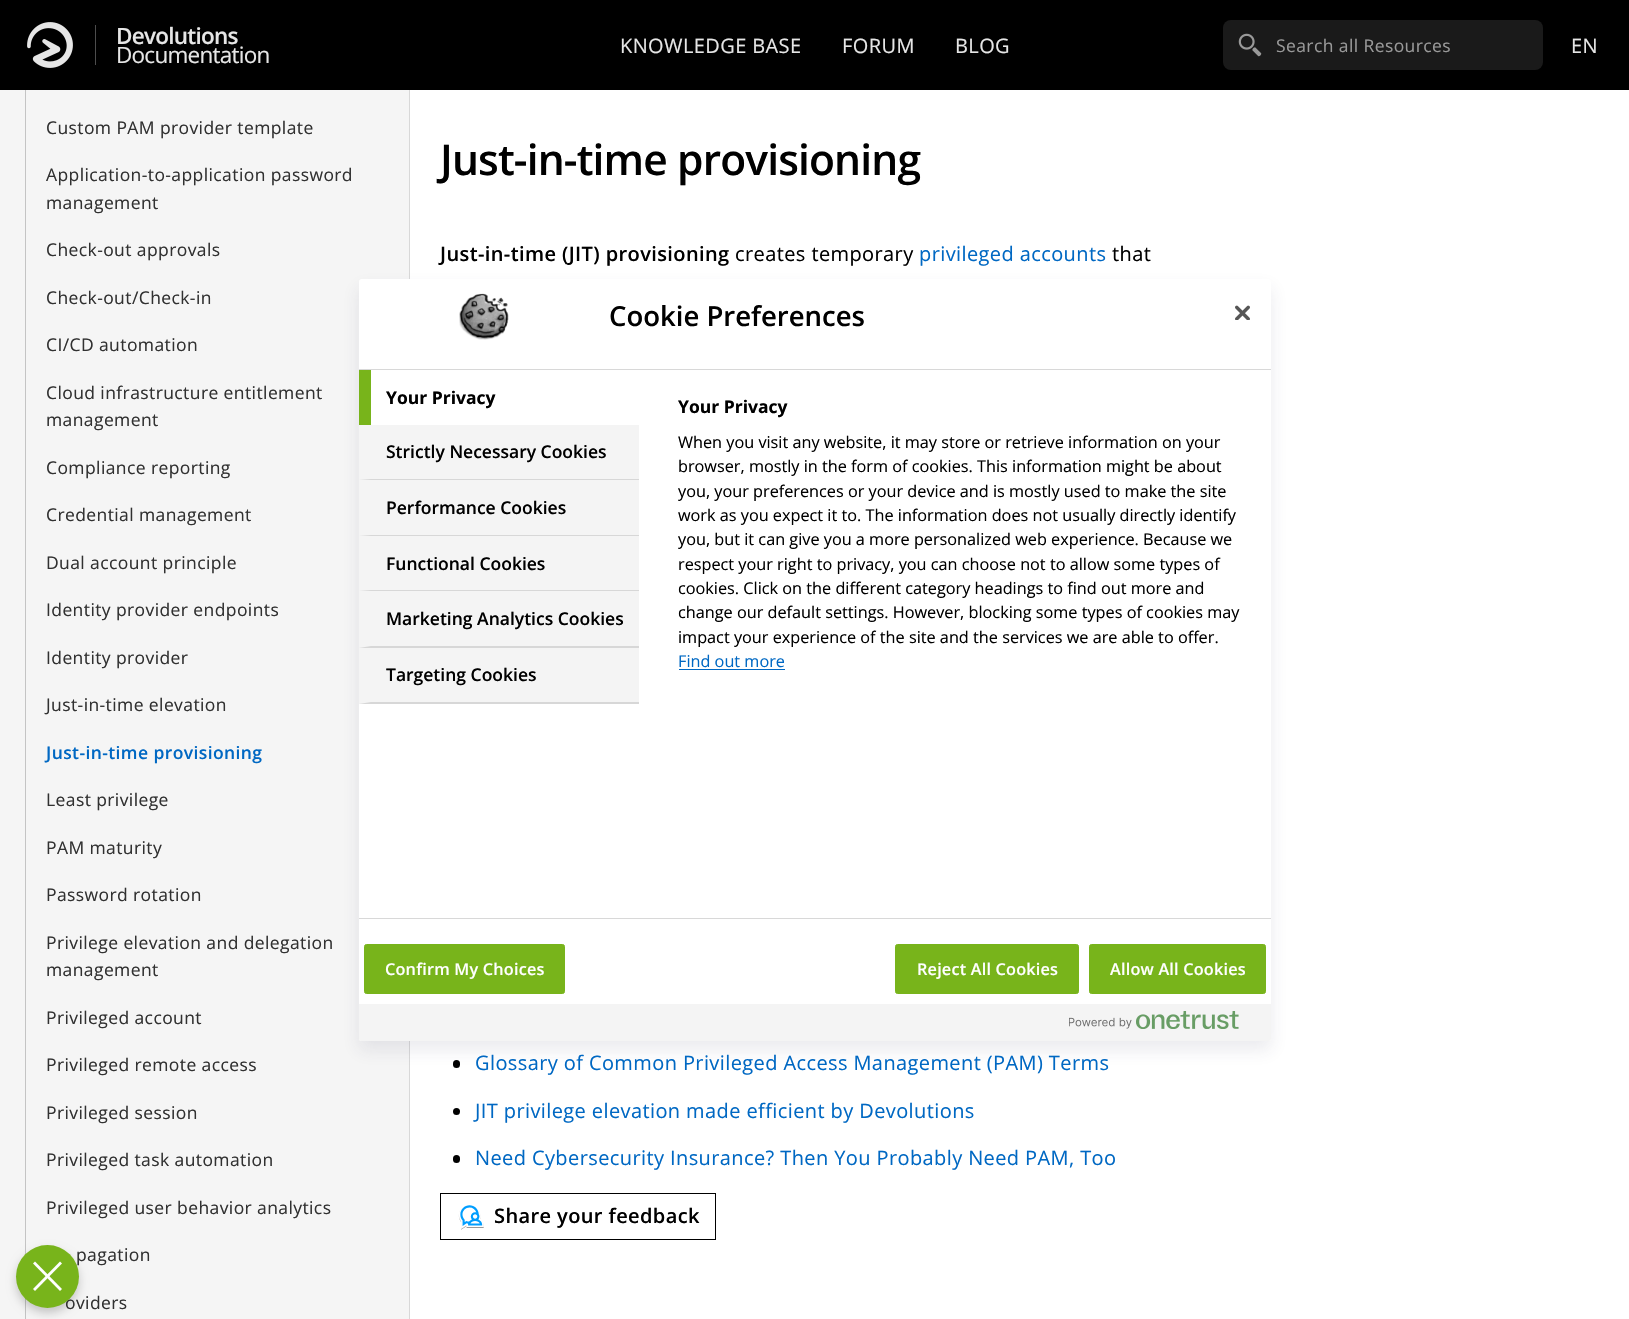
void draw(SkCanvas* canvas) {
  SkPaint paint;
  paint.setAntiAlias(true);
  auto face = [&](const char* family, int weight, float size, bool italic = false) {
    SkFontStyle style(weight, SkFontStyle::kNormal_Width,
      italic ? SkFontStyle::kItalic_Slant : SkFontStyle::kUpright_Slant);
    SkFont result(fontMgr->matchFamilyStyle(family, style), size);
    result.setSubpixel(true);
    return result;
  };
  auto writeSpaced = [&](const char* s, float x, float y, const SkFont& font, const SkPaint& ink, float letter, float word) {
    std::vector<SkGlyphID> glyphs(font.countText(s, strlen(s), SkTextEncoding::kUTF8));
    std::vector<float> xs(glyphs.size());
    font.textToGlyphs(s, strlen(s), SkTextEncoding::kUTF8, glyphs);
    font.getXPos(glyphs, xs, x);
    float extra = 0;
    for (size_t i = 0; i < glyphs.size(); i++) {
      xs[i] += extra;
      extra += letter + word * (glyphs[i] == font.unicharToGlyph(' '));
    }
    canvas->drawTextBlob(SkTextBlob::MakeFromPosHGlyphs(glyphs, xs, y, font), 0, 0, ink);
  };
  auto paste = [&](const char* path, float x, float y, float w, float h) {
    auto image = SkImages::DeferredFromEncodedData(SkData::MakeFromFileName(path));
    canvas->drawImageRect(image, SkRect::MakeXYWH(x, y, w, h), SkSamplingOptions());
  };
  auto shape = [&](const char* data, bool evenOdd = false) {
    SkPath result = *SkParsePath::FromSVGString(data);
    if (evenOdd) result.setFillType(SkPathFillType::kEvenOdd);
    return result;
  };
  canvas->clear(0xffffffff);
  paint.setColor(0xff000000);
  canvas->drawRect(SkRect::MakeXYWH(0, 0, 1629, 90), paint);
  paste("img/1.png", 27, 22, 46, 46);
  paint.setColor(0xff4d4d4d);
  canvas->drawRect(SkRect::MakeXYWH(95, 25, 1, 40), paint);
  paint.setColor(0xff1a1a1a);
  canvas->drawRoundRect(SkRect::MakeXYWH(1223, 20, 320, 50), 8, 8, paint);
  paste("img/2.png", 1238, 33, 24, 24);
  {
    const struct { float x, y, w, h; SkColor color; } items[] = {
      {0, 90, 409, 1229, 0xfff5f5f5},
      {409, 90, 1, 1229, 0xffd8d8d8},
      {25, 90, 1, 1165, 0xffc4c4c4},
      {25, 1298, 1, 21, 0xffc4c4c4},
    };
    for (auto [x, y, w, h, color] : items) {
      paint.setColor(color);
      canvas->drawRect(SkRect::MakeXYWH(x, y, w, h), paint);
    }
  }
  paint.setColor(0xff000000);
  canvas->drawRoundRect(SkRect::MakeXYWH(453, 1060, 7, 8), 3.5f, 3.5f, paint);
  canvas->drawCircle(456.5f, 1111.5f, 3.5f, paint);
  canvas->drawRoundRect(SkRect::MakeXYWH(453, 1155, 7, 8), 3.5f, 3.5f, paint);
  paint.setStroke(true);
  paint.setStrokeWidth(1);
  canvas->drawRect(SkRect::MakeXYWH(440.5f, 1193.5f, 275, 46), paint);
  paste("img/3.png", 458, 1205, 26, 25);
  paint.setStroke(false);
  paint.setColor(0x1a32325d);
  paint.setMaskFilter(SkMaskFilter::MakeBlur(kNormal_SkBlurStyle, 9));
  canvas->drawRoundRect(SkRect::MakeXYWH(359, 288, 912, 762), 2.5f, 2.5f, paint);
  paint.setMaskFilter(nullptr);
  paint.setColor(0xffffffff);
  canvas->drawRoundRect(SkRect::MakeXYWH(359, 279, 912, 762), 2.5f, 2.5f, paint);
  paint.setColor(0xffd8d8d8);
  canvas->drawRect(SkRect::MakeXYWH(359, 369, 912, 1), paint);
  paste("img/4.png", 459, 293, 50, 47);
  paste("img/5.png", 1235, 305, 15, 15);
  paint.setColor(0xff78b41b);
  canvas->drawRect(SkRect::MakeXYWH(359, 370, 12, 55), paint);
  paint.setColor(0xfff4f4f4);
  canvas->drawRect(SkRect::MakeXYWH(359, 425, 280, 279), paint);
  paint.setColor(0xffd7d7d7);
  canvas->drawPath(shape("M639 480H359L371 479H639Z"), paint);
  canvas->drawPath(shape("M639 536H359L371 535H639Z"), paint);
  canvas->drawPath(shape("M639 591H359L371 590H639Z"), paint);
  canvas->drawPath(shape("M639 648H359L371 646H639Z"), paint);
  canvas->drawPath(shape("M639 704H359L371 702H639Z"), paint);
  paint.setColor(0xff0068c3);
  canvas->drawRect(SkRect::MakeXYWH(679, 669, 106, 1), paint);
  paint.setColor(0xffd8d8d8);
  canvas->drawRect(SkRect::MakeXYWH(359, 918, 912, 1), paint);
  paint.setColor(0xff78b41b);
  canvas->drawRoundRect(SkRect::MakeXYWH(364.5f, 944.5f, 200, 49), 2, 2, paint);
  paint.setStroke(true);
  canvas->drawRoundRect(SkRect::MakeXYWH(364.5f, 944.5f, 200, 49), 2, 2, paint);
  paint.setStroke(false);
  canvas->drawRoundRect(SkRect::MakeXYWH(895.5f, 944.5f, 183, 49), 2, 2, paint);
  paint.setStroke(true);
  canvas->drawRoundRect(SkRect::MakeXYWH(895.5f, 944.5f, 183, 49), 2, 2, paint);
  paint.setStroke(false);
  canvas->drawRoundRect(SkRect::MakeXYWH(1089.5f, 944.5f, 176, 49), 2, 2, paint);
  paint.setStroke(true);
  canvas->drawRoundRect(SkRect::MakeXYWH(1089.5f, 944.5f, 176, 49), 2, 2, paint);
  paint.setStroke(false);
  paint.setColor(0xfff4f4f4);
  canvas->drawPath(shape("M359 1004H1271V1038.5C1271 1040 1270 1041 1268.5 1041H361.5C360 1041 359 1040 359 1038.5Z"), paint);
  paste("img/6.png", 1069, 1011, 170, 18);
  paint.setColor(0x33000000);
  paint.setMaskFilter(SkMaskFilter::MakeBlur(kNormal_SkBlurStyle, 5));
  canvas->drawRoundRect(SkRect::MakeXYWH(16, 1250, 63, 63), 31.5f, 31.5f, paint);
  paint.setMaskFilter(nullptr);
  auto f0 = face("Open Sans", 600, 22.5f);
  paint.setColor(0xffe6e6e6);
  writeSpaced("Devolutions", 116, 44, f0, paint, -0.75f, 0);
  auto f1 = face("Open Sans", 400, 22.5f);
  writeSpaced("Documentation", 116, 63, f1, paint, -0.75f, 0);
  auto f2 = face("Open Sans", 400, 20);
  {
    const struct { const char* s; float x, y; } items[] = {
      {"KNOWLEDGE BASE", 620, 53},
      {"FORUM", 842, 53},
      {"BLOG", 955, 53},
    };
    for (auto [s, x, y] : items) {
      writeSpaced(s, x, y, f2, paint, 0.4f, 0);
    }
  }
  auto f3 = face("Open Sans", 400, 17.5f);
  paint.setColor(0xff999999);
  writeSpaced("Search all Resources", 1276, 52, f3, paint, 0.4f, 0);
  paint.setColor(0xffe6e6e6);
  writeSpaced("EN", 1571, 53, f2, paint, 0.4f, 0);
  paint.setColor(0xff313131);
  {
    const struct { const char* s; float x, y; } items[] = {
      {"Custom PAM provider template", 46, 134},
      {"Application-to-application password", 46, 181},
      {"management", 46, 209},
      {"Check-out approvals", 46, 256},
      {"Check-out/Check-in", 46, 304},
      {"CI/CD automation", 46, 351},
      {"Cloud infrastructure entitlement", 46, 399},
      {"management", 46, 426},
      {"Compliance reporting", 46, 474},
      {"Credential management", 46, 521},
      {"Dual account principle", 46, 569},
      {"Identity provider endpoints", 46, 616},
      {"Identity provider", 46, 664},
      {"Just-in-time elevation", 46, 711},
    };
    for (auto [s, x, y] : items) {
      writeSpaced(s, x, y, f3, paint, 0.4f, 0);
    }
  }
  auto f4 = face("Open Sans", 600, 17.5f);
  paint.setColor(0xff0068c3);
  writeSpaced("Just-in-time provisioning", 46, 759, f4, paint, 0.4f, 0);
  paint.setColor(0xff313131);
  {
    const struct { const char* s; float x, y; } items[] = {
      {"Least privilege", 46, 806},
      {"PAM maturity", 46, 854},
      {"Password rotation", 46, 901},
      {"Privilege elevation and delegation", 46, 949},
      {"management", 46, 976},
      {"Privileged account", 46, 1024},
      {"Privileged remote access", 46, 1071},
      {"Privileged session", 46, 1119},
      {"Privileged task automation", 46, 1166},
      {"Privileged user behavior analytics", 46, 1214},
      {"pagation", 76, 1261},
      {"oviders", 65, 1309},
    };
    for (auto [s, x, y] : items) {
      writeSpaced(s, x, y, f3, paint, 0.4f, 0);
    }
  }
  auto f5 = face("Open Sans", 600, 42.5f);
  paint.setColor(0xff000000);
  writeSpaced("Just-in-time provisioning", 440, 175, f5, paint, -0.85f, 0);
  auto f6 = face("Open Sans", 600, 20);
  writeSpaced("Just-in-time (JIT) provisioning", 440, 261, f6, paint, 0.4f, 0);
  writeSpaced("creates temporary", 735, 261, f2, paint, 0.4f, 0);
  paint.setColor(0xff0068c3);
  writeSpaced("privileged accounts", 919, 261, f2, paint, 0.4f, 0);
  paint.setColor(0xff000000);
  writeSpaced("that", 1112, 261, f2, paint, 0.4f, 0);
  paint.setColor(0xff0068c3);
  {
    const struct { const char* s; float x, y; } items[] = {
      {"Glossary of Common Privileged Access Management (PAM) Terms", 475, 1070},
      {"JIT privilege elevation made efficient by Devolutions", 475, 1118},
      {"Need Cybersecurity Insurance? Then You Probably Need PAM, Too", 475, 1165},
    };
    for (auto [s, x, y] : items) {
      writeSpaced(s, x, y, f2, paint, 0.4f, 0);
    }
  }
  paint.setColor(0xff000000);
  writeSpaced("Share your feedback", 494, 1223, f6, paint, 0.4f, 0);
  auto f7 = face("Open Sans", 600, 27.5f);
  canvas->drawString("Cookie Preferences", 609, 326, f7, paint);
  auto f8 = face("Open Sans", 700, 17.5f);
  canvas->drawString("Your Privacy", 386, 404, f8, paint);
  {
    const struct { const char* s; float x, y; } items[] = {
      {"Strictly Necessary Cookies", 386, 458},
      {"Performance Cookies", 386, 514},
      {"Functional Cookies", 386, 570},
      {"Marketing Analytics Cookies", 386, 625},
      {"Targeting Cookies", 386, 681},
    };
    for (auto [s, x, y] : items) {
      canvas->drawString(s, x, y, f4, paint);
    }
  }
  canvas->drawString("Your Privacy", 678, 413, f8, paint);
  auto f9 = face("Open Sans", 400, 16.25f);
  {
    const struct { const char* s; float x, y; } items[] = {
      {"When you visit any website, it may store or retrieve information on your", 678, 448},
      {"browser, mostly in the form of cookies. This information might be about", 678, 472},
      {"you, your preferences or your device and is mostly used to make the site", 678, 497},
      {"work as you expect it to. The information does not usually directly identify", 678, 521},
      {"you, but it can give you a more personalized web experience. Because we", 678, 545},
      {"respect your right to privacy, you can choose not to allow some types of", 678, 570},
      {"cookies. Click on the different category headings to find out more and", 678, 594},
      {"change our default settings. However, blocking some types of cookies may", 678, 618},
      {"impact your experience of the site and the services we are able to offer.", 678, 643},
    };
    for (auto [s, x, y] : items) {
      canvas->drawString(s, x, y, f9, paint);
    }
  }
  paint.setColor(0xff0068c3);
  canvas->drawString("Find out more", 678, 667, f9, paint);
  auto f10 = face("Open Sans", 600, 16.25f);
  paint.setColor(0xffffffff);
  {
    const struct { const char* s; float x, y; } items[] = {
      {"Confirm My Choices", 385, 975},
      {"Reject All Cookies", 917, 975},
      {"Allow All Cookies", 1110, 975},
    };
    for (auto [s, x, y] : items) {
      writeSpaced(s, x, y, f10, paint, 0.2f, 0);
    }
  }
  paint.setColor(0xff78b41b);
  canvas->drawCircle(47.5f, 1276.5f, 31.5f, paint);
  paint.setColor(0xffffffff);
  canvas->drawPath(shape("M33 1263.5L60 1291L62 1289L35 1261.5Z"), paint);
  canvas->drawPath(shape("M62 1263.5L35 1291L33 1289L60 1261.5Z"), paint);
}
